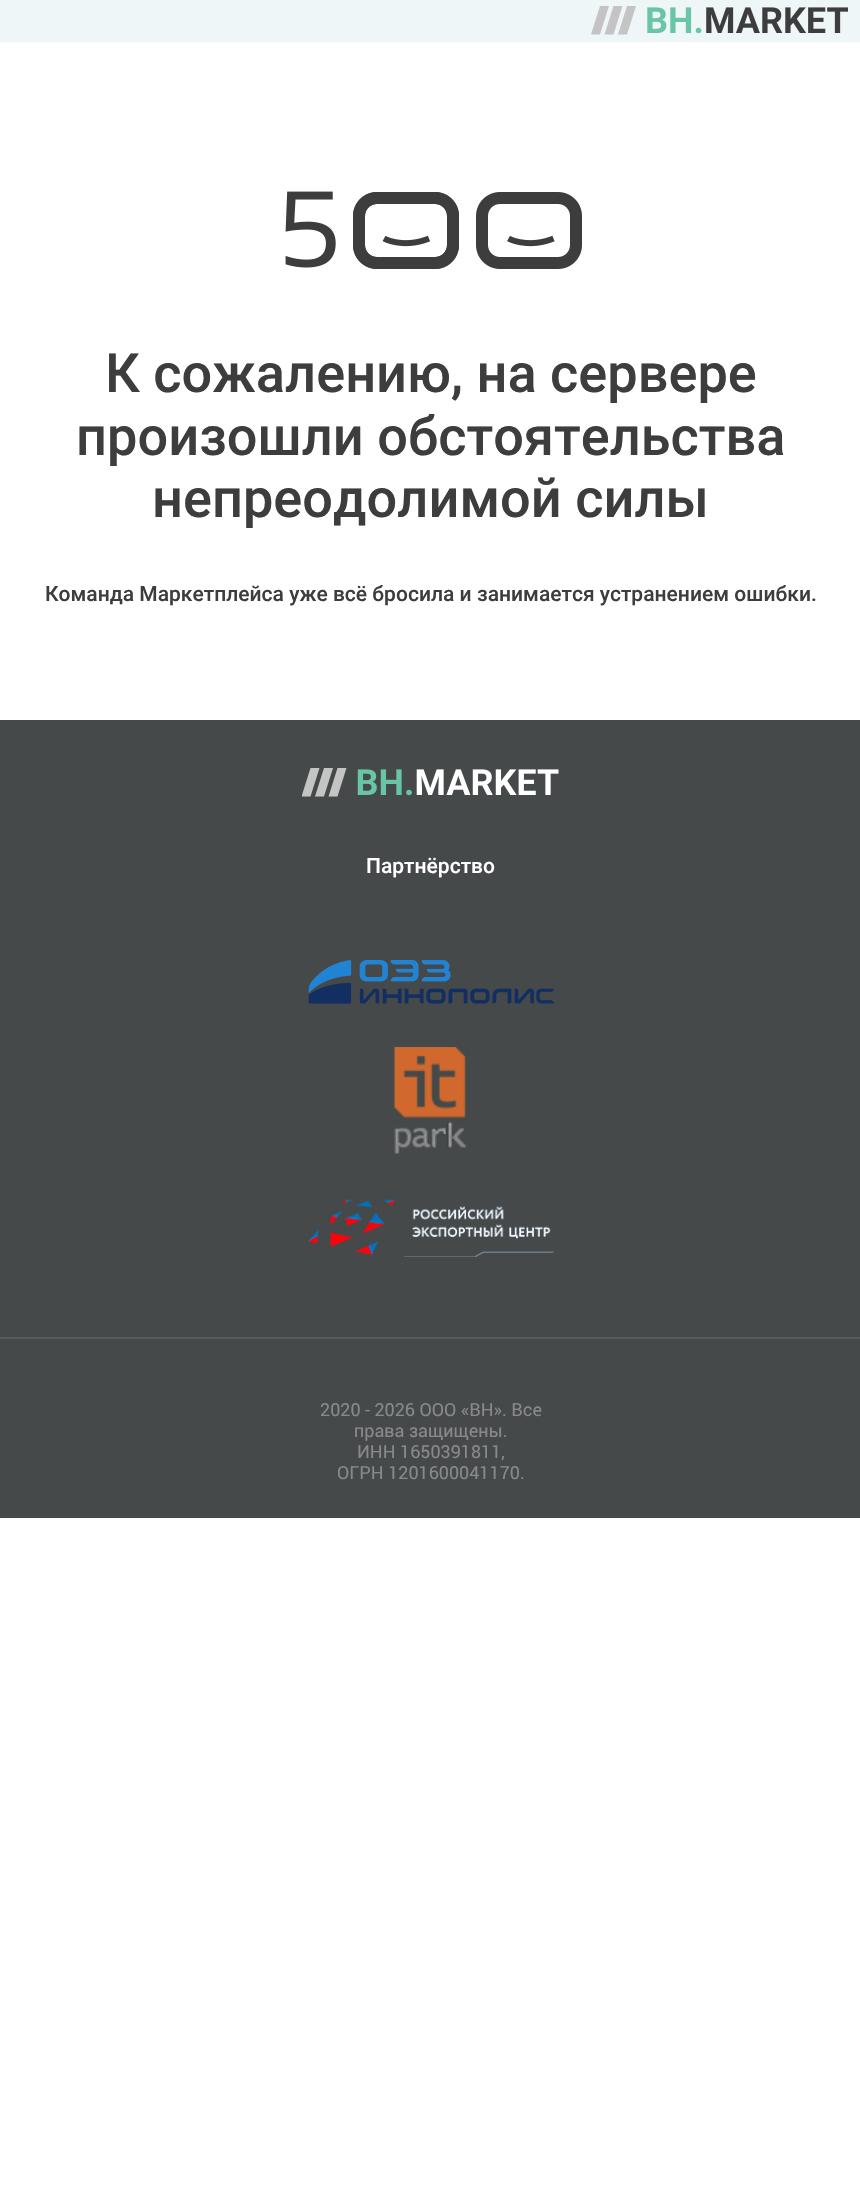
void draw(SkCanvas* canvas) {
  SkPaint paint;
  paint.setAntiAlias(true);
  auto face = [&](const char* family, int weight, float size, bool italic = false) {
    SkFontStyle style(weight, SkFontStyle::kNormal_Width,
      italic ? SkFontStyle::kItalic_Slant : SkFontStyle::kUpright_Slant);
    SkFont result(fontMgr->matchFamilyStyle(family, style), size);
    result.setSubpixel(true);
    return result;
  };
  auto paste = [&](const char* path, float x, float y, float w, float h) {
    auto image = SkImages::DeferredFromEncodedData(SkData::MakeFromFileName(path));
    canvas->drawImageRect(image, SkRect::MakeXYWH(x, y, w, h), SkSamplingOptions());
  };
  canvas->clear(0xffffffff);
  paint.setColor(0xffeef6f8);
  canvas->drawRect(SkRect::MakeXYWH(0, 0, 860, 42), paint);
  paste("img/1.png", 591, 6, 257, 29);
  paste("img/2.png", 285, 191, 297, 78);
  paint.setColor(0xff45494a);
  canvas->drawRect(SkRect::MakeXYWH(0, 720, 860, 798), paint);
  paste("img/3.png", 302, 768, 257, 29);
  paste("img/4.png", 308, 960, 246, 44);
  paste("img/5.png", 394, 1047, 73, 107);
  paste("img/6.png", 307, 1199, 247, 58);
  paint.setColor(0xff595959);
  canvas->drawRect(SkRect::MakeXYWH(0, 1337, 860, 2), paint);
  auto f0 = face("Roboto", 500, 54);
  paint.setColor(0xff3d3d3d);
  {
    const struct { const char* s; float x, y; } items[] = {
      {"К сожалению, на сервере", 105, 392},
      {"произошли обстоятельства", 76, 455},
      {"непреодолимой силы", 152, 517},
    };
    for (auto [s, x, y] : items) {
      canvas->drawString(s, x, y, f0, paint);
    }
  }
  auto f1 = face("Roboto", 500, 21);
  canvas->drawString("Команда Маркетплейса уже всё бросила и занимается устранением ошибки.", 45, 601, f1, paint);
  paint.setColor(0xffffffff);
  canvas->drawString("Партнёрство", 366, 873, f1, paint);
  auto f2 = face("Roboto", 400, 18);
  paint.setColor(0xff898989);
  {
    const struct { const char* s; float x, y; } items[] = {
      {"2020 - 2026 ООО «BH». Все", 320, 1416},
      {"права защищены.", 354, 1437},
      {"ИНН 1650391811,", 357, 1458},
      {"ОГРН 1201600041170.", 337, 1479},
    };
    for (auto [s, x, y] : items) {
      canvas->drawString(s, x, y, f2, paint);
    }
  }
}
